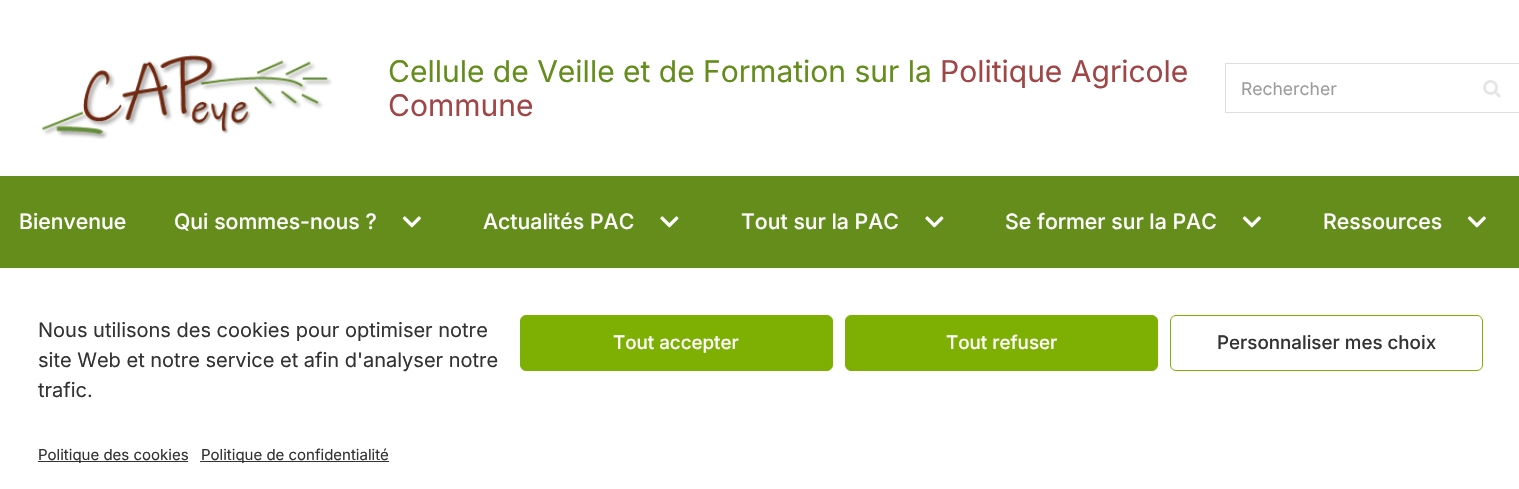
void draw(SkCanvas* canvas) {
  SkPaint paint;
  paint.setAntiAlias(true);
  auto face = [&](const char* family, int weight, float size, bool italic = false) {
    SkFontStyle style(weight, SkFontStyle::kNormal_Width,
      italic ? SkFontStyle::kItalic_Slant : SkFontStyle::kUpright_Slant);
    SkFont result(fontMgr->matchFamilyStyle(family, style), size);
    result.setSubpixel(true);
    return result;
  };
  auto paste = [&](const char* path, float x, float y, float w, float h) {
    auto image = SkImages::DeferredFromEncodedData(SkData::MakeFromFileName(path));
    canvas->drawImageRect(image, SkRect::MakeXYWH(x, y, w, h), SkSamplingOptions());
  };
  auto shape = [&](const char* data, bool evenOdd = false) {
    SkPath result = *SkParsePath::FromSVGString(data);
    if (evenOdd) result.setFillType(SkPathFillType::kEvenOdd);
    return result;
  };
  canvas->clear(0xffffffff);
  paste("img/1.png", 41, 55, 291, 84);
  paint.setStroke(true);
  paint.setStrokeWidth(1);
  paint.setColor(0xffdddddd);
  canvas->drawPath(shape("M1226 63.5H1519.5V112.5H1226C1225.5 112.5 1225.5 112.5 1225.5 112V64C1225.5 63.5 1225.5 63.5 1226 63.5Z"), paint);
  paste("img/2.png", 1483, 80, 18, 18);
  paint.setStroke(false);
  paint.setColor(0xff648d1c);
  canvas->drawRect(SkRect::MakeXYWH(0, 176, 1519, 92), paint);
  paste("img/3.png", 402, 216, 19, 12);
  paste("img/4.png", 660, 216, 19, 12);
  paste("img/4.png", 925, 216, 19, 12);
  paste("img/3.png", 1242, 216, 19, 12);
  paste("img/3.png", 1467, 216, 19, 12);
  paint.setColor(0xff7eb003);
  canvas->drawRoundRect(SkRect::MakeXYWH(520.5f, 315.5f, 312, 55), 5.5f, 5.5f, paint);
  paint.setStroke(true);
  canvas->drawRoundRect(SkRect::MakeXYWH(520.5f, 315.5f, 312, 55), 5.5f, 5.5f, paint);
  paint.setStroke(false);
  canvas->drawRoundRect(SkRect::MakeXYWH(845.5f, 315.5f, 312, 55), 5.5f, 5.5f, paint);
  paint.setStroke(true);
  canvas->drawRoundRect(SkRect::MakeXYWH(845.5f, 315.5f, 312, 55), 5.5f, 5.5f, paint);
  canvas->drawRoundRect(SkRect::MakeXYWH(1170.5f, 315.5f, 312, 55), 5.5f, 5.5f, paint);
  paint.setStroke(false);
  paint.setColor(0xff333333);
  canvas->drawRect(SkRect::MakeXYWH(38, 461, 150, 1), paint);
  canvas->drawRect(SkRect::MakeXYWH(200, 461, 189, 1), paint);
  auto f0 = face("Inter", 400, 30);
  paint.setColor(0xff648d1c);
  canvas->drawString("Cellule de Veille et de Formation sur la", 388, 82, f0, paint);
  paint.setColor(0xffa04646);
  canvas->drawString("Politique Agricole", 940, 82, f0, paint);
  canvas->drawString("Commune", 388, 116, f0, paint);
  auto f1 = face("Inter", 400, 17.5f);
  paint.setColor(0xff9c9c9c);
  canvas->drawString("Rechercher", 1241, 95, f1, paint);
  auto f2 = face("Inter", 500, 21.25f);
  paint.setColor(0xffffffff);
  {
    const struct { const char* s; float x, y; } items[] = {
      {"Bienvenue", 19, 229},
      {"Qui sommes-nous ?", 174, 229},
      {"Actualités PAC", 483, 229},
      {"Tout sur la PAC", 741, 229},
      {"Se former sur la PAC", 1005, 229},
      {"Ressources", 1323, 229},
    };
    for (auto [s, x, y] : items) {
      canvas->drawString(s, x, y, f2, paint);
    }
  }
  auto f3 = face("Inter", 400, 20);
  paint.setColor(0xff333333);
  {
    const struct { const char* s; float x, y; } items[] = {
      {"Nous utilisons des cookies pour optimiser notre", 38, 337},
      {"site Web et notre service et afin d'analyser notre", 38, 367},
      {"trafic.", 38, 397},
    };
    for (auto [s, x, y] : items) {
      canvas->drawString(s, x, y, f3, paint);
    }
  }
  auto f4 = face("Inter", 500, 18.75f);
  paint.setColor(0xffffffff);
  canvas->drawString("Tout accepter", 613, 349, f4, paint);
  canvas->drawString("Tout refuser", 946, 349, f4, paint);
  paint.setColor(0xff333333);
  canvas->drawString("Personnaliser mes choix", 1217, 349, f4, paint);
  auto f5 = face("Inter", 400, 15);
  canvas->drawString("Politique des cookies", 38, 460, f5, paint);
  canvas->drawString("Politique de confidentialité", 201, 460, f5, paint);
}
